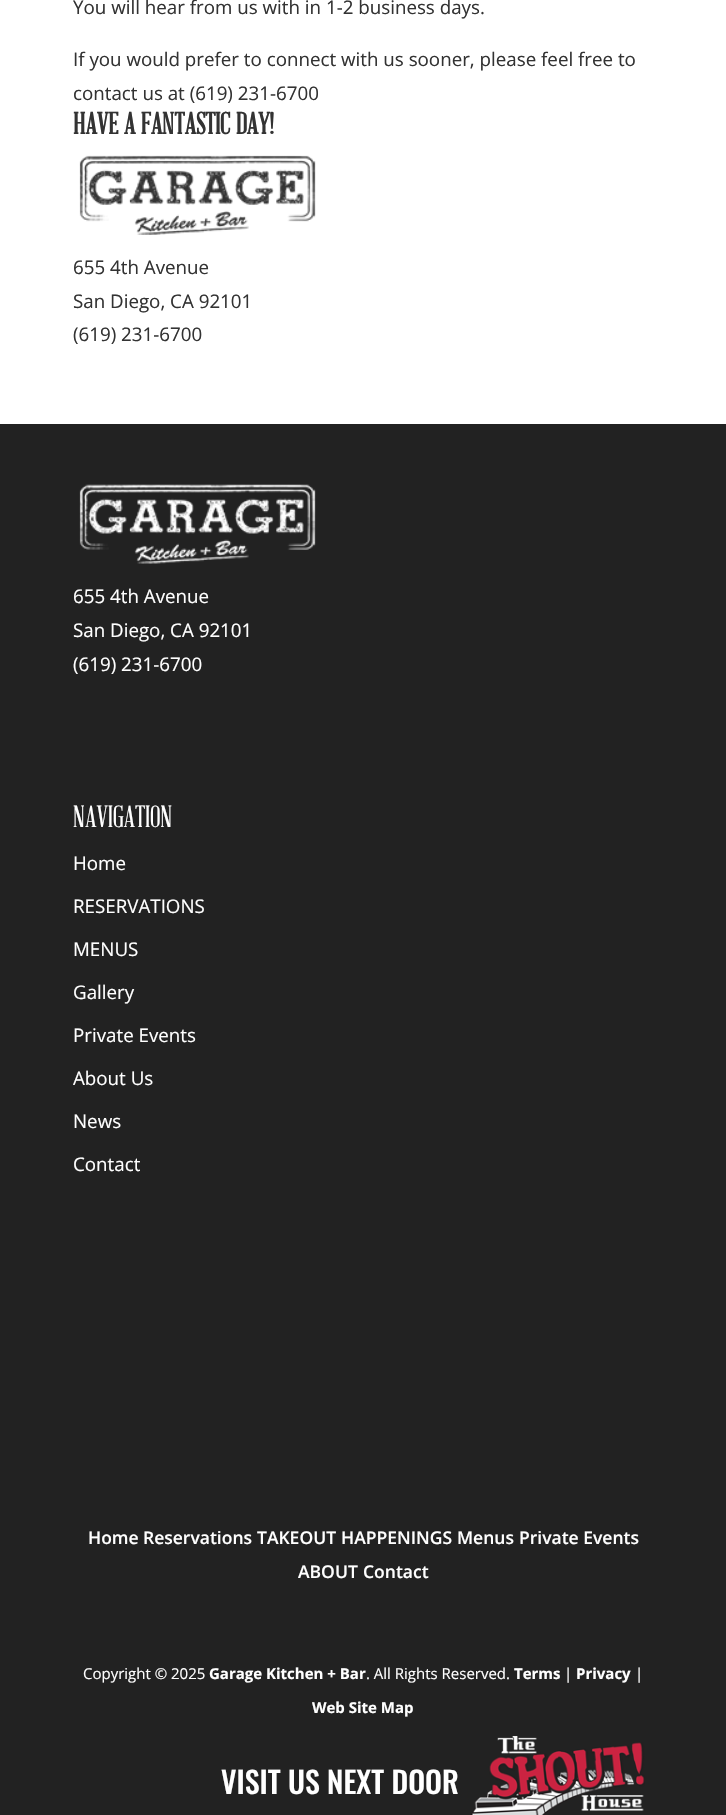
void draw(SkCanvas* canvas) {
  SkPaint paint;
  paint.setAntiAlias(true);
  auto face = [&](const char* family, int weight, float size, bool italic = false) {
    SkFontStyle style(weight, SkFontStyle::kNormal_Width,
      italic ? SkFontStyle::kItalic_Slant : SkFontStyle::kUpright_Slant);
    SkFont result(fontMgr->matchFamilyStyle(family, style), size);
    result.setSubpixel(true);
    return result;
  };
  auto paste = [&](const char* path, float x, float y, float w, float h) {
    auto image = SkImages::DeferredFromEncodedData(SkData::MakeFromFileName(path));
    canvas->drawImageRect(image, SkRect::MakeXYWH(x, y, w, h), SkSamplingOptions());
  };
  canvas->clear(0xffffffff);
  paste("img/1.png", 79, 155, 237, 80);
  paint.setColor(0xff222222);
  canvas->drawRect(SkRect::MakeXYWH(0, 424, 726, 1391), paint);
  paste("img/2.png", 79, 484, 237, 80);
  paste("img/3.png", 471, 1736, 174, 79);
  auto f0 = face("Open Sans", 400, 18.75f);
  paint.setColor(0xff333333);
  {
    const struct { const char* s; float x, y; } items[] = {
      {"You will hear from us with in 1-2 business days.", 73, 14},
      {"If you would prefer to connect with us sooner, please feel free to", 73, 66},
      {"contact us at (619) 231-6700", 73, 100},
    };
    for (auto [s, x, y] : items) {
      canvas->drawString(s, x, y, f0, paint);
    }
  }
  auto f1 = face("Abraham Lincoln", 700, 30);
  canvas->drawString("HAVE A FANTASTIC DAY!", 73, 134, f1, paint);
  {
    const struct { const char* s; float x, y; } items[] = {
      {"655 4th Avenue", 73, 274},
      {"San Diego, CA 92101", 73, 308},
      {"(619) 231-6700", 73, 341},
    };
    for (auto [s, x, y] : items) {
      canvas->drawString(s, x, y, f0, paint);
    }
  }
  paint.setColor(0xffffffff);
  {
    const struct { const char* s; float x, y; } items[] = {
      {"655 4th Avenue", 73, 603},
      {"San Diego, CA 92101", 73, 637},
      {"(619) 231-6700", 73, 671},
    };
    for (auto [s, x, y] : items) {
      canvas->drawString(s, x, y, f0, paint);
    }
  }
  auto f2 = face("Abraham Lincoln", 400, 30);
  canvas->drawString("NAVIGATION", 73, 827, f2, paint);
  {
    const struct { const char* s; float x, y; } items[] = {
      {"Home", 73, 870},
      {"RESERVATIONS", 73, 913},
      {"MENUS", 73, 956},
      {"Gallery", 73, 999},
      {"Private Events", 73, 1042},
      {"About Us", 73, 1085},
      {"News", 73, 1128},
      {"Contact", 73, 1171},
    };
    for (auto [s, x, y] : items) {
      canvas->drawString(s, x, y, f0, paint);
    }
  }
  auto f3 = face("Open Sans", 600, 17.5f);
  {
    const struct { const char* s; float x, y; } items[] = {
      {"Home", 88, 1544},
      {"Reservations", 143, 1544},
      {"TAKEOUT", 257, 1544},
      {"HAPPENINGS", 341, 1544},
      {"Menus", 457, 1544},
      {"Private Events", 519, 1544},
      {"ABOUT", 298, 1578},
      {"Contact", 363, 1578},
    };
    for (auto [s, x, y] : items) {
      canvas->drawString(s, x, y, f3, paint);
    }
  }
  auto f4 = face("Open Sans", 400, 15);
  canvas->drawString("Copyright © 2025", 83, 1679, f4, paint);
  auto f5 = face("Open Sans", 700, 15);
  canvas->drawString("Garage Kitchen + Bar", 209, 1679, f5, paint);
  canvas->drawString(". All Rights Reserved.", 366, 1679, f4, paint);
  canvas->drawString("Terms", 514, 1679, f5, paint);
  canvas->drawString("|", 564, 1679, f4, paint);
  canvas->drawString("Privacy", 576, 1679, f5, paint);
  canvas->drawString("|", 635, 1679, f4, paint);
  canvas->drawString("Web Site Map", 312, 1713, f5, paint);
  auto f6 = face("Oswald", 500, 30);
  canvas->drawString("VISIT US NEXT DOOR", 221, 1794, f6, paint);
}
